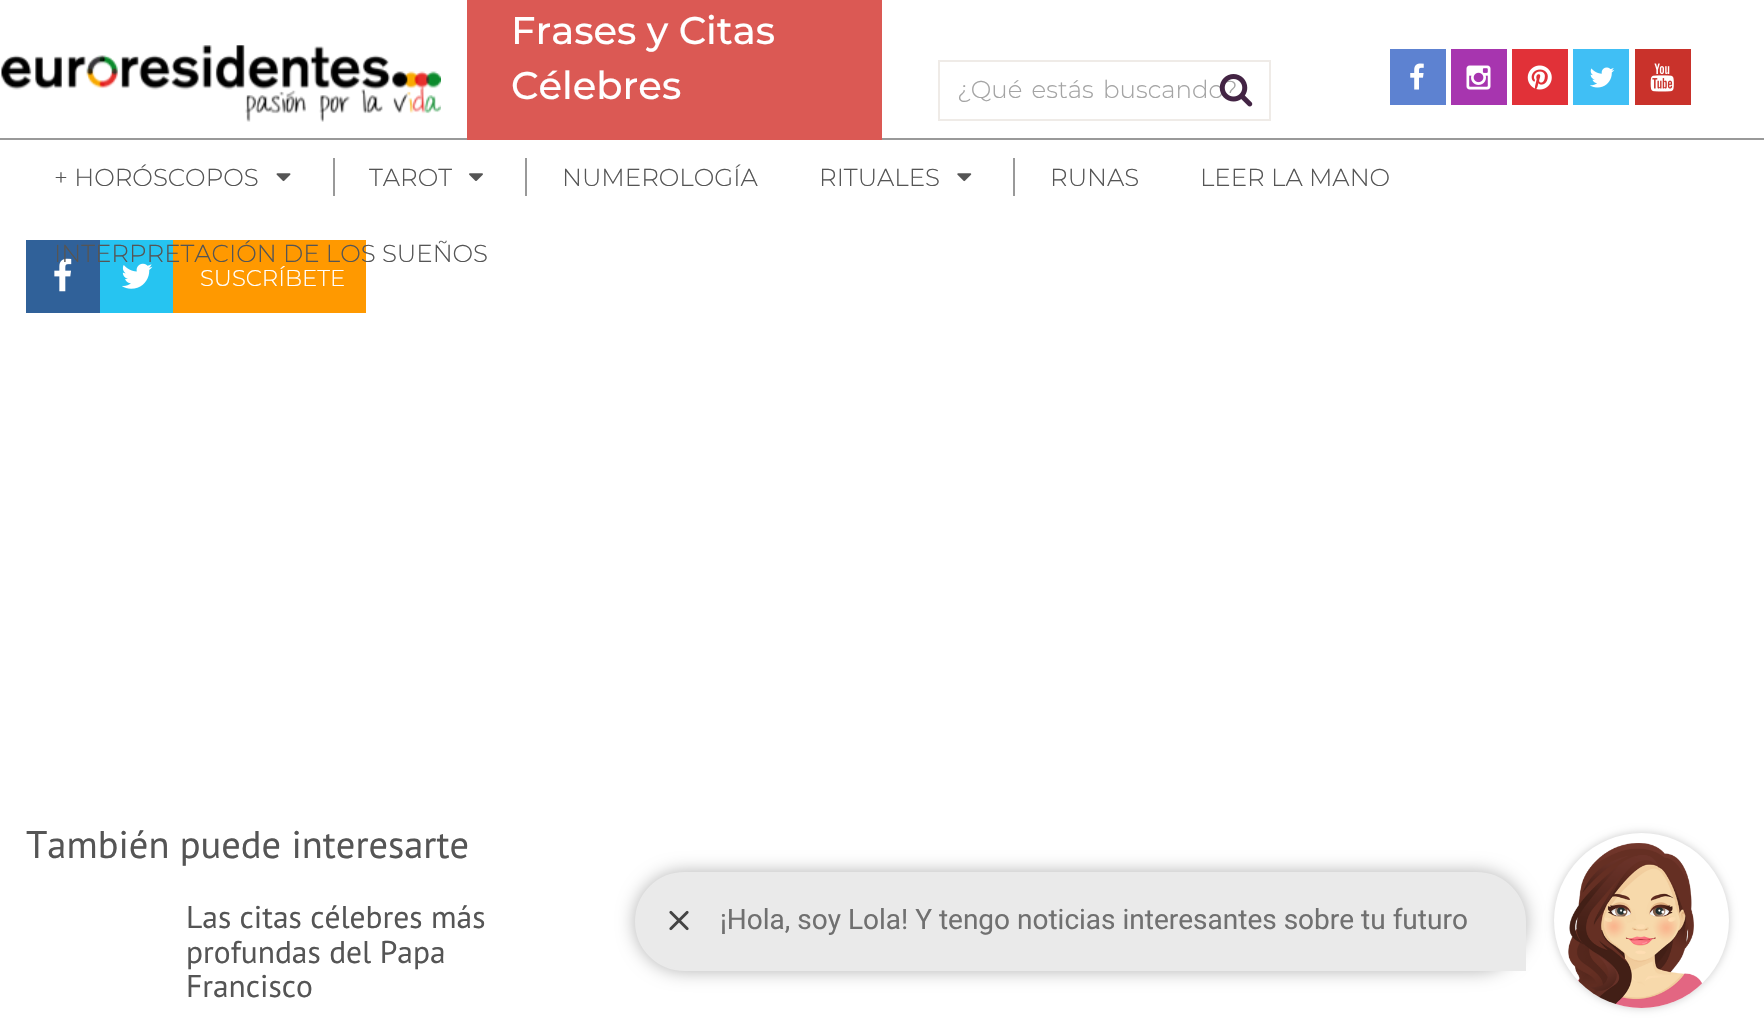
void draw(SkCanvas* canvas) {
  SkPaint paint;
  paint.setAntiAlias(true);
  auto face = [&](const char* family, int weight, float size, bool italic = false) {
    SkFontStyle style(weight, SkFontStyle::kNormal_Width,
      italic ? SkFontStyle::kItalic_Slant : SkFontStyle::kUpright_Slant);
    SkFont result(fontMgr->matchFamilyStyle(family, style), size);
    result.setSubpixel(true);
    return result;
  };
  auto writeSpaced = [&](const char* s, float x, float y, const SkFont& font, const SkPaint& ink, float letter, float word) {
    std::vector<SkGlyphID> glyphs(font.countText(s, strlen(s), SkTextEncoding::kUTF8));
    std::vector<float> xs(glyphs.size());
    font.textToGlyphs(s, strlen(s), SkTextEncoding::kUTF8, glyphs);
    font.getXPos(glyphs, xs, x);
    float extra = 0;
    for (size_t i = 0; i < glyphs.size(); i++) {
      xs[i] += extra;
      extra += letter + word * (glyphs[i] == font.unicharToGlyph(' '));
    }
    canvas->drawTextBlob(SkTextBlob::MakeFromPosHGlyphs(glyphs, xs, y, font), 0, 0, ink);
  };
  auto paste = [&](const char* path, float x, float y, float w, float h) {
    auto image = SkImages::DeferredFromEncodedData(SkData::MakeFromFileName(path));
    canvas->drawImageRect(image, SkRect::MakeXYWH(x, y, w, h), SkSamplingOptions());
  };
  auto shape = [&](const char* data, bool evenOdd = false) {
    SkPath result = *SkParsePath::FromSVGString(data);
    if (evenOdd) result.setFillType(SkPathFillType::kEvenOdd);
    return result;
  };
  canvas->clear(0xffffffff);
  paint.setColor(0xff999999);
  canvas->drawRect(SkRect::MakeXYWH(0, 138, 1764, 2), paint);
  paste("img/1.png", 1, 45, 440, 77);
  paint.setColor(0xffdb5954);
  canvas->drawRect(SkRect::MakeXYWH(467, 0, 415, 140), paint);
  paint.setStroke(true);
  paint.setStrokeWidth(2);
  paint.setColor(0xffefebe7);
  canvas->drawRect(SkRect::MakeXYWH(939, 61, 331, 59), paint);
  paint.setStroke(false);
  paint.setColor(0xff5d82d1);
  canvas->drawRect(SkRect::MakeXYWH(1390, 49, 56, 56), paint);
  paste("img/3.png", 1410, 63, 14, 27);
  paint.setColor(0xffa735af);
  canvas->drawRect(SkRect::MakeXYWH(1451, 49, 56, 56), paint);
  paste("img/4.png", 1466, 65, 25, 25);
  paint.setColor(0xffe13138);
  canvas->drawRect(SkRect::MakeXYWH(1512, 49, 56, 56), paint);
  paste("img/5.png", 1527, 65, 25, 25);
  paint.setColor(0xff40bff5);
  canvas->drawRect(SkRect::MakeXYWH(1573, 49, 56, 56), paint);
  paste("img/6.png", 1590, 67, 25, 21);
  paint.setColor(0xffc9322b);
  canvas->drawRect(SkRect::MakeXYWH(1635, 49, 56, 56), paint);
  paste("img/7.png", 1650, 63, 24, 29);
  paste("img/8.png", 276, 173, 15, 9);
  paint.setColor(0xff999999);
  canvas->drawRect(SkRect::MakeXYWH(333, 158, 2, 38), paint);
  paste("img/9.png", 469, 173, 14, 8);
  canvas->drawRect(SkRect::MakeXYWH(525, 158, 2, 38), paint);
  paste("img/10.png", 957, 173, 15, 9);
  canvas->drawRect(SkRect::MakeXYWH(1013, 158, 2, 38), paint);
  paint.setColor(0xff306199);
  canvas->drawRect(SkRect::MakeXYWH(26, 240, 74, 73), paint);
  paste("img/11.png", 54, 258, 18, 34);
  paint.setColor(0xff26c4f1);
  canvas->drawRect(SkRect::MakeXYWH(100, 240, 73, 73), paint);
  paste("img/12.png", 122, 263, 31, 26);
  paint.setColor(0xffff9900);
  canvas->drawRect(SkRect::MakeXYWH(173, 240, 193, 73), paint);
  paint.setColor(0x4d000000);
  paint.setMaskFilter(SkMaskFilter::MakeBlur(kNormal_SkBlurStyle, 9));
  canvas->drawRoundRect(SkRect::MakeXYWH(635, 872, 891, 99), 49.5f, 49.5f, paint);
  paint.setMaskFilter(nullptr);
  paint.setColor(0xffeaeaea);
  canvas->drawPath(shape("M684.5 873H1476.5C1503.5 873 1525 894.5 1525 921.5V970H684.5C657.5 970 636 948.5 636 921.5C636 894.5 657.5 873 684.5 873Z"), paint);
  paint.setStroke(true);
  canvas->drawPath(shape("M684.5 873H1476.5C1503.5 873 1525 894.5 1525 921.5V970H684.5C657.5 970 636 948.5 636 921.5C636 894.5 657.5 873 684.5 873Z"), paint);
  paste("img/13.png", 669, 910, 20, 21);
  paint.setStroke(false);
  paint.setColor(0x33000000);
  paint.setMaskFilter(SkMaskFilter::MakeBlur(kNormal_SkBlurStyle, 4.5f));
  canvas->drawRoundRect(SkRect::MakeXYWH(1554, 833, 175, 175), 87.5f, 87.5f, paint);
  paint.setMaskFilter(nullptr);
  paint.setColor(0xffffffff);
  canvas->drawCircle(1641.5f, 920.5f, 87.5f, paint);
  paste("img/14.png", 1568, 843, 134, 165);
  auto f0 = face("Montserrat", 500, 38.5f);
  canvas->drawString("Frases y Citas", 511, 44, f0, paint);
  canvas->drawString("Célebres", 511, 99, f0, paint);
  auto f1 = face("Montserrat", 300, 24.5f);
  paint.setColor(0xffa4a4a4);
  writeSpaced("¿Qué estás buscando?", 957, 98, f1, paint, 0, 3);
  paste("img/2.png", 1219, 74, 34, 33);
  paint.setColor(0xff555555);
  {
    const struct { const char* s; float x, y; } items[] = {
      {"+ HORÓSCOPOS", 54, 186},
      {"TAROT", 369, 186},
      {"NUMEROLOGÍA", 562, 186},
      {"RITUALES", 819, 186},
      {"RUNAS", 1050, 186},
      {"LEER LA MANO", 1200, 186},
      {"INTERPRETACIÓN DE LOS SUEÑOS", 54, 262},
    };
    for (auto [s, x, y] : items) {
      canvas->drawString(s, x, y, f1, paint);
    }
  }
  auto f2 = face("Montserrat", 300, 22.75f);
  paint.setColor(0xffffffff);
  canvas->drawString("SUSCRÍBETE", 200, 286, f2, paint);
  auto f3 = face("PT Sans", 400, 38.5f);
  paint.setColor(0xff555555);
  canvas->drawString("También puede interesarte", 26, 858, f3, paint);
  auto f4 = face("PT Sans", 400, 31.5f);
  {
    const struct { const char* s; float x, y; } items[] = {
      {"Las citas célebres más", 186, 928},
      {"profundas del Papa", 186, 963},
      {"Francisco", 186, 997},
    };
    for (auto [s, x, y] : items) {
      canvas->drawString(s, x, y, f4, paint);
    }
  }
  auto f5 = face("Roboto", 400, 28);
  paint.setColor(0xff707070);
  canvas->drawString("¡Hola, soy Lola! Y tengo noticias interesantes sobre tu futuro", 720, 929, f5, paint);
}
